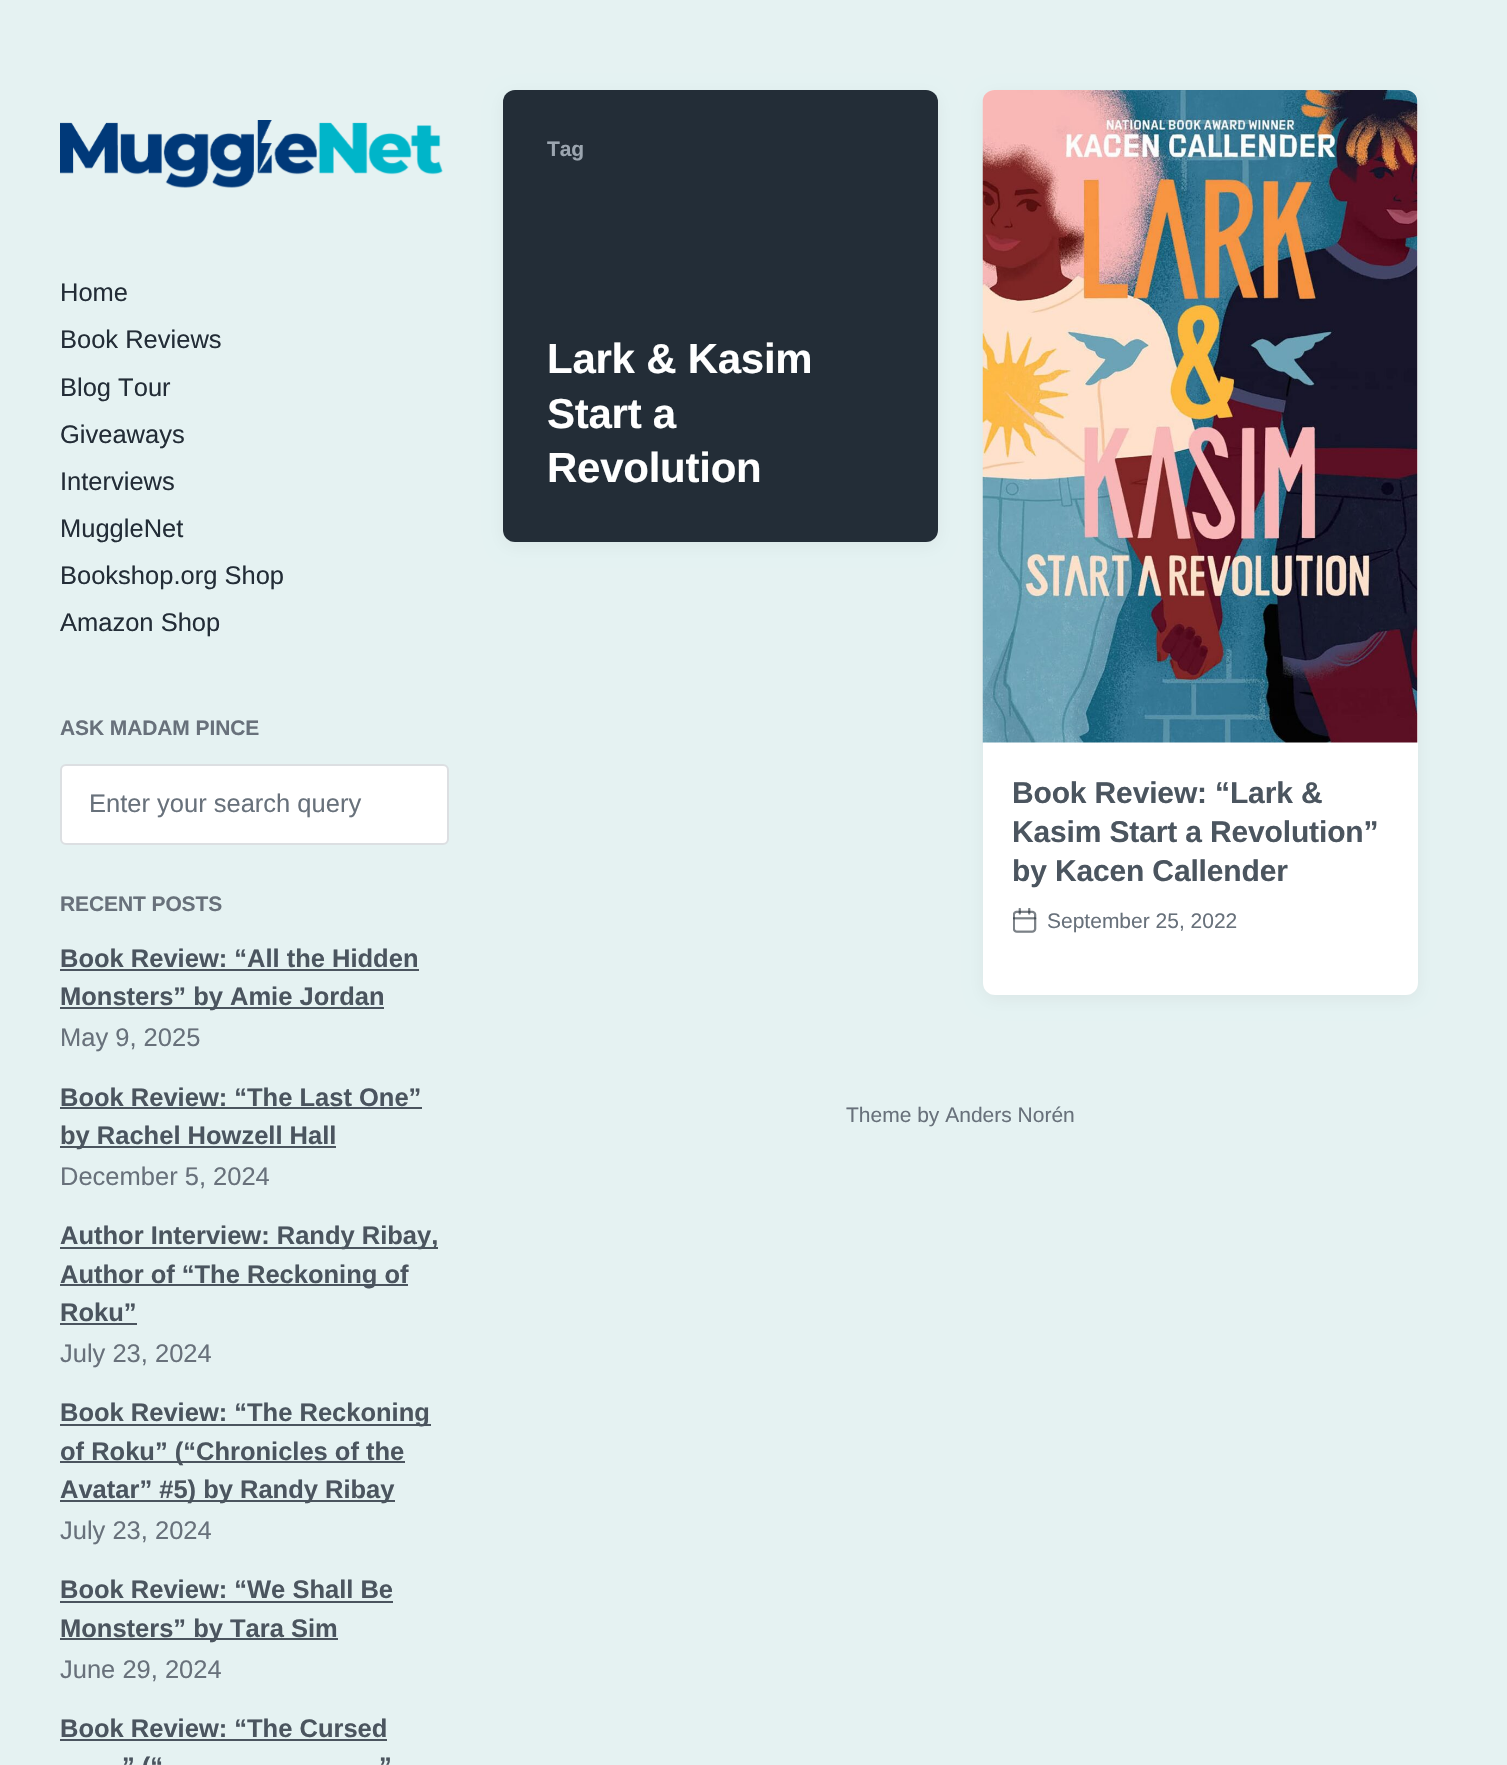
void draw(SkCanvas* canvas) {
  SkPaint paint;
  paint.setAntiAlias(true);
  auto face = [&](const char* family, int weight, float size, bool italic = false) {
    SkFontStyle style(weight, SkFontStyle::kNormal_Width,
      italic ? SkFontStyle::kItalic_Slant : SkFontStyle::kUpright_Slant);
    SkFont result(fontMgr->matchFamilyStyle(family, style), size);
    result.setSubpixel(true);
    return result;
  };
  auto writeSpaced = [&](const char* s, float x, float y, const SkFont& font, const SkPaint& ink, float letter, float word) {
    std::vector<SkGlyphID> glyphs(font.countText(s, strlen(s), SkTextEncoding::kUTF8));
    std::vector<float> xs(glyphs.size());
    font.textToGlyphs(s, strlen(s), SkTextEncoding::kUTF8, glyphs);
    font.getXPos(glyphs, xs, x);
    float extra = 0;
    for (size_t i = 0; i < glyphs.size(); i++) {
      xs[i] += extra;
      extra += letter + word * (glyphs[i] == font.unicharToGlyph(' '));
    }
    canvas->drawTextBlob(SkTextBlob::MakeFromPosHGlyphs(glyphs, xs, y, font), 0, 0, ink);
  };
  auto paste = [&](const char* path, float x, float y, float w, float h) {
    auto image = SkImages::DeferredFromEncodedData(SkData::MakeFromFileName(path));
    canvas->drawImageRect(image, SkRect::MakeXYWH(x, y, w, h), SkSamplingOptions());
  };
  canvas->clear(0xffe5f2f2);
  paste("img/1.png", 60, 120, 383, 68);
  paint.setColor(0xffffffff);
  canvas->drawRoundRect(SkRect::MakeXYWH(61, 765, 387, 79), 5, 5, paint);
  paint.setStroke(true);
  paint.setStrokeWidth(2);
  paint.setColor(0xffdcdfe2);
  canvas->drawRoundRect(SkRect::MakeXYWH(61, 765, 387, 79), 5, 5, paint);
  paint.setStroke(false);
  {
    const struct { float x, y, w, h; SkColor color; } items[] = {
      {60, 969, 359, 2, 0xff4b555f},
      {60, 1007, 324, 2, 0xff4b555f},
      {60, 1107, 362, 2, 0xff4b555f},
      {60, 1146, 276, 2, 0xff4b555f},
      {60, 1247, 378, 2, 0xff4b555f},
      {60, 1284, 348, 2, 0xff4b555f},
      {60, 1323, 77, 2, 0xff4b555f},
      {60, 1424, 371, 2, 0xff4b555f},
      {60, 1461, 345, 2, 0xff4b555f},
      {60, 1500, 335, 2, 0xff4b555f},
      {60, 1601, 333, 2, 0xff4b555f},
      {60, 1638, 278, 2, 0xff4b555f},
      {60, 1739, 327, 2, 0xff4b555f},
    };
    for (auto [x, y, w, h, color] : items) {
      paint.setColor(color);
      canvas->drawRect(SkRect::MakeXYWH(x, y, w, h), paint);
    }
  }
  paint.setColor(0x0d050a0f);
  paint.setMaskFilter(SkMaskFilter::MakeBlur(kNormal_SkBlurStyle, 9));
  canvas->drawRoundRect(SkRect::MakeXYWH(503, 95, 435, 451), 12, 12, paint);
  paint.setMaskFilter(nullptr);
  paint.setColor(0xff232d37);
  canvas->drawRoundRect(SkRect::MakeXYWH(503, 90, 435, 452), 12, 12, paint);
  paint.setColor(0x0d050a0f);
  paint.setMaskFilter(SkMaskFilter::MakeBlur(kNormal_SkBlurStyle, 9));
  canvas->drawRoundRect(SkRect::MakeXYWH(983, 95, 435, 904), 12, 12, paint);
  paint.setMaskFilter(nullptr);
  paint.setColor(0xffffffff);
  canvas->drawRoundRect(SkRect::MakeXYWH(983, 90, 435, 905), 12, 12, paint);
  paste("img/2.png", 982, 90, 436, 653);
  paste("img/3.png", 1013, 908, 24, 25);
  auto f0 = face("Liberation Sans", 400, 25.5f);
  paint.setColor(0xff232d37);
  {
    const struct { const char* s; float x, y; } items[] = {
      {"Home", 60, 301},
      {"Book Reviews", 60, 348},
      {"Blog Tour", 60, 396},
      {"Giveaways", 60, 443},
      {"Interviews", 60, 490},
      {"MuggleNet", 60, 537},
      {"Bookshop.org Shop", 60, 584},
      {"Amazon Shop", 60, 631},
    };
    for (auto [s, x, y] : items) {
      canvas->drawString(s, x, y, f0, paint);
    }
  }
  auto f1 = face("Liberation Sans", 700, 21);
  paint.setColor(0xff68717b);
  writeSpaced("ASK MADAM PINCE", 60, 735, f1, paint, -0.1f, 0);
  canvas->drawString("Enter your search query", 89, 812, f0, paint);
  writeSpaced("RECENT POSTS", 60, 911, f1, paint, -0.1f, 0);
  auto f2 = face("Liberation Sans", 700, 25.5f);
  paint.setColor(0xff4b555f);
  canvas->drawString("Book Review: “All the Hidden", 60, 967, f2, paint);
  canvas->drawString("Monsters” by Amie Jordan", 60, 1005, f2, paint);
  paint.setColor(0xff68717b);
  canvas->drawString("May 9, 2025", 60, 1046, f0, paint);
  paint.setColor(0xff4b555f);
  canvas->drawString("Book Review: “The Last One”", 60, 1106, f2, paint);
  canvas->drawString("by Rachel Howzell Hall", 60, 1144, f2, paint);
  paint.setColor(0xff68717b);
  canvas->drawString("December 5, 2024", 60, 1185, f0, paint);
  paint.setColor(0xff4b555f);
  {
    const struct { const char* s; float x, y; } items[] = {
      {"Author Interview: Randy Ribay,", 60, 1244},
      {"Author of “The Reckoning of", 60, 1283},
      {"Roku”", 60, 1321},
    };
    for (auto [s, x, y] : items) {
      canvas->drawString(s, x, y, f2, paint);
    }
  }
  paint.setColor(0xff68717b);
  canvas->drawString("July 23, 2024", 60, 1362, f0, paint);
  paint.setColor(0xff4b555f);
  {
    const struct { const char* s; float x, y; } items[] = {
      {"Book Review: “The Reckoning", 60, 1421},
      {"of Roku” (“Chronicles of the", 60, 1460},
      {"Avatar” #5) by Randy Ribay", 60, 1498},
    };
    for (auto [s, x, y] : items) {
      canvas->drawString(s, x, y, f2, paint);
    }
  }
  paint.setColor(0xff68717b);
  canvas->drawString("July 23, 2024", 60, 1539, f0, paint);
  paint.setColor(0xff4b555f);
  canvas->drawString("Book Review: “We Shall Be", 60, 1598, f2, paint);
  canvas->drawString("Monsters” by Tara Sim", 60, 1637, f2, paint);
  paint.setColor(0xff68717b);
  canvas->drawString("June 29, 2024", 60, 1678, f0, paint);
  paint.setColor(0xff4b555f);
  {
    const struct { const char* s; float x, y; } items[] = {
      {"Book Review: “The Cursed", 60, 1737},
      {"” (“", 122, 1775},
      {"”", 379, 1775},
    };
    for (auto [s, x, y] : items) {
      canvas->drawString(s, x, y, f2, paint);
    }
  }
  paint.setColor(0xff9ba5af);
  writeSpaced("Tag", 547, 156, f1, paint, -0.1f, 0);
  auto f3 = face("Liberation Sans", 700, 42);
  paint.setColor(0xffffffff);
  {
    const struct { const char* s; float x, y; } items[] = {
      {"Lark & Kasim", 547, 373},
      {"Start a", 547, 428},
      {"Revolution", 547, 482},
    };
    for (auto [s, x, y] : items) {
      writeSpaced(s, x, y, f3, paint, -0.25f, 0);
    }
  }
  auto f4 = face("Liberation Sans", 700, 30);
  paint.setColor(0xff4b555f);
  {
    const struct { const char* s; float x, y; } items[] = {
      {"Book Review: “Lark &", 1012, 803},
      {"Kasim Start a Revolution”", 1012, 842},
      {"by Kacen Callender", 1012, 881},
    };
    for (auto [s, x, y] : items) {
      writeSpaced(s, x, y, f4, paint, -0.15f, 0);
    }
  }
  auto f5 = face("Liberation Sans", 400, 21);
  paint.setColor(0xff68717b);
  canvas->drawString("September 25, 2022", 1047, 928, f5, paint);
  canvas->drawString("Theme by Anders Norén", 846, 1122, f5, paint);
}
